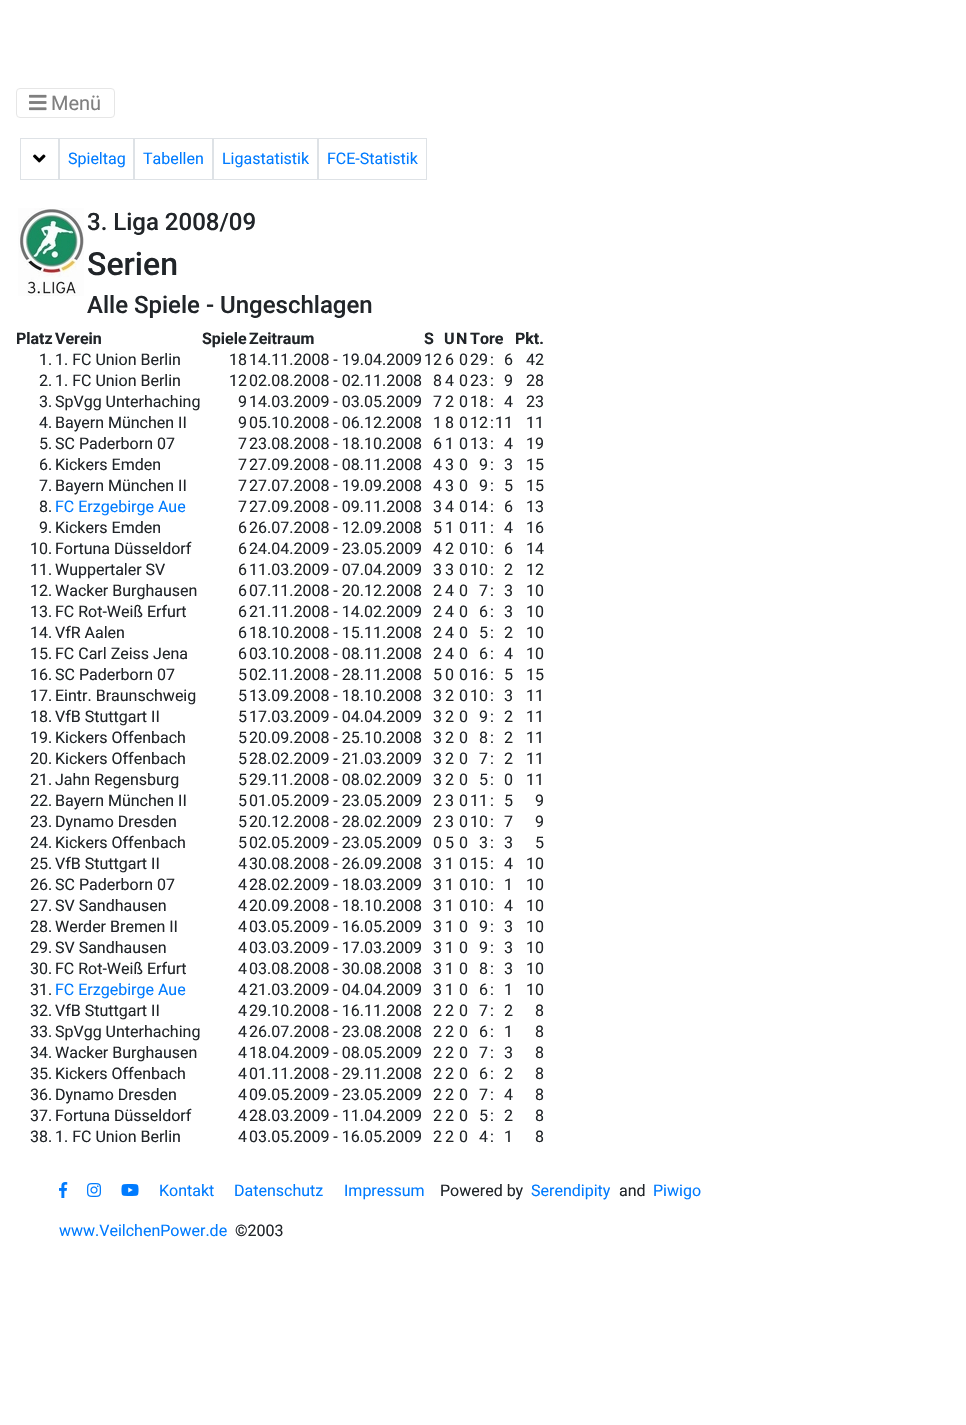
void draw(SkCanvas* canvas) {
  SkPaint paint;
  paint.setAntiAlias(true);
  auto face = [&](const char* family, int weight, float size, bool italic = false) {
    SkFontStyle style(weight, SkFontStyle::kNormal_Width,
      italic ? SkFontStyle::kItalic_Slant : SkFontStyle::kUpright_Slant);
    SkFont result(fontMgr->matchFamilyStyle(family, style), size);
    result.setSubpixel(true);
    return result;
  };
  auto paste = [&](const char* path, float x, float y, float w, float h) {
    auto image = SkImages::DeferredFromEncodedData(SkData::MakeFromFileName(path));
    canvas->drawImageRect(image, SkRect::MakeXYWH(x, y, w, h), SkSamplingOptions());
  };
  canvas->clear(0xffffffff);
  paint.setStroke(true);
  paint.setStrokeWidth(1);
  paint.setColor(0xffe6e6e6);
  canvas->drawRoundRect(SkRect::MakeXYWH(16.5f, 88.5f, 98, 29), 3.5f, 3.5f, paint);
  paste("img/1.png", 29, 94, 18, 17);
  paint.setColor(0xffdee2e6);
  canvas->drawRect(SkRect::MakeXYWH(20.5f, 138.5f, 38, 41), paint);
  paste("img/2.png", 33, 154, 13, 9);
  canvas->drawRect(SkRect::MakeXYWH(59.5f, 138.5f, 74, 41), paint);
  canvas->drawRect(SkRect::MakeXYWH(134.5f, 138.5f, 78, 41), paint);
  canvas->drawRect(SkRect::MakeXYWH(213.5f, 138.5f, 104, 41), paint);
  canvas->drawRect(SkRect::MakeXYWH(318.5f, 138.5f, 108, 41), paint);
  paste("img/3.png", 18, 208, 66, 88);
  paste("img/4.png", 59, 1182, 9, 16);
  paste("img/5.png", 87, 1183, 14, 14);
  paste("img/6.png", 121, 1184, 18, 12);
  auto f0 = face("Roboto", 400, 20);
  paint.setStroke(false);
  paint.setColor(0xff808080);
  canvas->drawString("Menü", 51, 110, f0, paint);
  auto f1 = face("Roboto", 400, 16);
  paint.setColor(0xff007bff);
  {
    const struct { const char* s; float x, y; } items[] = {
      {"Spieltag", 68, 164},
      {"Tabellen", 143, 164},
      {"Ligastatistik", 222, 164},
      {"FCE-Statistik", 327, 164},
    };
    for (auto [s, x, y] : items) {
      canvas->drawString(s, x, y, f1, paint);
    }
  }
  auto f2 = face("Roboto", 500, 24);
  paint.setColor(0xff212529);
  canvas->drawString("3. Liga 2008/09", 87, 230, f2, paint);
  auto f3 = face("Roboto", 500, 32);
  canvas->drawString("Serien", 87, 275, f3, paint);
  canvas->drawString("Alle Spiele - Ungeschlagen", 87, 313, f2, paint);
  auto f4 = face("Roboto", 700, 16);
  {
    const struct { const char* s; float x, y; } items[] = {
      {"Platz", 16, 344},
      {"Verein", 55, 344},
      {"Spiele", 202, 344},
      {"Zeitraum", 249, 344},
      {"S", 424, 344},
      {"U", 444, 344},
      {"N", 456, 344},
      {"Tore", 470, 344},
      {"Pkt.", 515, 344},
    };
    for (auto [s, x, y] : items) {
      canvas->drawString(s, x, y, f4, paint);
    }
  }
  {
    const struct { const char* s; float x, y; } items[] = {
      {"1.", 39, 365},
      {"1. FC Union Berlin", 55, 365},
      {"18", 229, 365},
      {"14.11.2008 - 19.04.2009", 249, 365},
      {"12", 424, 365},
      {"6", 445, 365},
      {"0", 459, 365},
      {"29", 470, 365},
      {":", 490, 365},
      {"6", 504, 365},
      {"42", 526, 365},
      {"2.", 39, 386},
      {"1. FC Union Berlin", 55, 386},
      {"12", 229, 386},
      {"02.08.2008 - 02.11.2008", 249, 386},
      {"8", 433, 386},
      {"4", 445, 386},
      {"0", 459, 386},
      {"23", 470, 386},
      {":", 490, 386},
      {"9", 504, 386},
      {"28", 526, 386},
      {"3.", 39, 407},
      {"SpVgg Unterhaching", 55, 407},
      {"9", 238, 407},
      {"14.03.2009 - 03.05.2009", 249, 407},
      {"7", 433, 407},
      {"2", 445, 407},
      {"0", 459, 407},
      {"18", 470, 407},
      {":", 490, 407},
      {"4", 504, 407},
      {"23", 526, 407},
      {"4.", 39, 428},
      {"Bayern München II", 55, 428},
      {"9", 238, 428},
      {"05.10.2008 - 06.12.2008", 249, 428},
      {"1", 433, 428},
      {"8", 445, 428},
      {"0", 459, 428},
      {"12", 470, 428},
      {":", 490, 428},
      {"11", 495, 428},
      {"11", 526, 428},
      {"5.", 39, 449},
      {"SC Paderborn 07", 55, 449},
      {"7", 238, 449},
      {"23.08.2008 - 18.10.2008", 249, 449},
      {"6", 433, 449},
      {"1", 445, 449},
      {"0", 459, 449},
      {"13", 470, 449},
      {":", 490, 449},
      {"4", 504, 449},
      {"19", 526, 449},
      {"6.", 39, 470},
      {"Kickers Emden", 55, 470},
      {"7", 238, 470},
      {"27.09.2008 - 08.11.2008", 249, 470},
      {"4", 433, 470},
      {"3", 445, 470},
      {"0", 459, 470},
      {"9", 479, 470},
      {":", 490, 470},
      {"3", 504, 470},
      {"15", 526, 470},
      {"7.", 39, 491},
      {"Bayern München II", 55, 491},
      {"7", 238, 491},
      {"27.07.2008 - 19.09.2008", 249, 491},
      {"4", 433, 491},
      {"3", 445, 491},
      {"0", 459, 491},
      {"9", 479, 491},
      {":", 490, 491},
      {"5", 504, 491},
      {"15", 526, 491},
      {"8.", 39, 512},
    };
    for (auto [s, x, y] : items) {
      canvas->drawString(s, x, y, f1, paint);
    }
  }
  paint.setColor(0xff007bff);
  canvas->drawString("FC Erzgebirge Aue", 55, 512, f1, paint);
  paint.setColor(0xff212529);
  {
    const struct { const char* s; float x, y; } items[] = {
      {"7", 238, 512},
      {"27.09.2008 - 09.11.2008", 249, 512},
      {"3", 433, 512},
      {"4", 445, 512},
      {"0", 459, 512},
      {"14", 470, 512},
      {":", 490, 512},
      {"6", 504, 512},
      {"13", 526, 512},
      {"9.", 39, 533},
      {"Kickers Emden", 55, 533},
      {"6", 238, 533},
      {"26.07.2008 - 12.09.2008", 249, 533},
      {"5", 433, 533},
      {"1", 445, 533},
      {"0", 459, 533},
      {"11", 470, 533},
      {":", 490, 533},
      {"4", 504, 533},
      {"16", 526, 533},
      {"10.", 30, 554},
      {"Fortuna Düsseldorf", 55, 554},
      {"6", 238, 554},
      {"24.04.2009 - 23.05.2009", 249, 554},
      {"4", 433, 554},
      {"2", 445, 554},
      {"0", 459, 554},
      {"10", 470, 554},
      {":", 490, 554},
      {"6", 504, 554},
      {"14", 526, 554},
      {"11.", 30, 575},
      {"Wuppertaler SV", 55, 575},
      {"6", 238, 575},
      {"11.03.2009 - 07.04.2009", 249, 575},
      {"3", 433, 575},
      {"3", 445, 575},
      {"0", 459, 575},
      {"10", 470, 575},
      {":", 490, 575},
      {"2", 504, 575},
      {"12", 526, 575},
      {"12.", 30, 596},
      {"Wacker Burghausen", 55, 596},
      {"6", 238, 596},
      {"07.11.2008 - 20.12.2008", 249, 596},
      {"2", 433, 596},
      {"4", 445, 596},
      {"0", 459, 596},
      {"7", 479, 596},
      {":", 490, 596},
      {"3", 504, 596},
      {"10", 526, 596},
      {"13.", 30, 617},
      {"FC Rot-Weiß Erfurt", 55, 617},
      {"6", 238, 617},
      {"21.11.2008 - 14.02.2009", 249, 617},
      {"2", 433, 617},
      {"4", 445, 617},
      {"0", 459, 617},
      {"6", 479, 617},
      {":", 490, 617},
      {"3", 504, 617},
      {"10", 526, 617},
      {"14.", 30, 638},
      {"VfR Aalen", 55, 638},
      {"6", 238, 638},
      {"18.10.2008 - 15.11.2008", 249, 638},
      {"2", 433, 638},
      {"4", 445, 638},
      {"0", 459, 638},
      {"5", 479, 638},
      {":", 490, 638},
      {"2", 504, 638},
      {"10", 526, 638},
      {"15.", 30, 659},
      {"FC Carl Zeiss Jena", 55, 659},
      {"6", 238, 659},
      {"03.10.2008 - 08.11.2008", 249, 659},
      {"2", 433, 659},
      {"4", 445, 659},
      {"0", 459, 659},
      {"6", 479, 659},
      {":", 490, 659},
      {"4", 504, 659},
      {"10", 526, 659},
      {"16.", 30, 680},
      {"SC Paderborn 07", 55, 680},
      {"5", 238, 680},
      {"02.11.2008 - 28.11.2008", 249, 680},
      {"5", 433, 680},
      {"0", 445, 680},
      {"0", 459, 680},
      {"16", 470, 680},
      {":", 490, 680},
      {"5", 504, 680},
      {"15", 526, 680},
      {"17.", 30, 701},
      {"Eintr. Braunschweig", 55, 701},
      {"5", 238, 701},
      {"13.09.2008 - 18.10.2008", 249, 701},
      {"3", 433, 701},
      {"2", 445, 701},
      {"0", 459, 701},
      {"10", 470, 701},
      {":", 490, 701},
      {"3", 504, 701},
      {"11", 526, 701},
      {"18.", 30, 722},
      {"VfB Stuttgart II", 55, 722},
      {"5", 238, 722},
      {"17.03.2009 - 04.04.2009", 249, 722},
      {"3", 433, 722},
      {"2", 445, 722},
      {"0", 459, 722},
      {"9", 479, 722},
      {":", 490, 722},
      {"2", 504, 722},
      {"11", 526, 722},
      {"19.", 30, 743},
      {"Kickers Offenbach", 55, 743},
      {"5", 238, 743},
      {"20.09.2008 - 25.10.2008", 249, 743},
      {"3", 433, 743},
      {"2", 445, 743},
      {"0", 459, 743},
      {"8", 479, 743},
      {":", 490, 743},
      {"2", 504, 743},
      {"11", 526, 743},
      {"20.", 30, 764},
      {"Kickers Offenbach", 55, 764},
      {"5", 238, 764},
      {"28.02.2009 - 21.03.2009", 249, 764},
      {"3", 433, 764},
      {"2", 445, 764},
      {"0", 459, 764},
      {"7", 479, 764},
      {":", 490, 764},
      {"2", 504, 764},
      {"11", 526, 764},
      {"21.", 30, 785},
      {"Jahn Regensburg", 55, 785},
      {"5", 238, 785},
      {"29.11.2008 - 08.02.2009", 249, 785},
      {"3", 433, 785},
      {"2", 445, 785},
      {"0", 459, 785},
      {"5", 479, 785},
      {":", 490, 785},
      {"0", 504, 785},
      {"11", 526, 785},
      {"22.", 30, 806},
      {"Bayern München II", 55, 806},
      {"5", 238, 806},
      {"01.05.2009 - 23.05.2009", 249, 806},
      {"2", 433, 806},
      {"3", 445, 806},
      {"0", 459, 806},
      {"11", 470, 806},
      {":", 490, 806},
      {"5", 504, 806},
      {"9", 535, 806},
      {"23.", 30, 827},
      {"Dynamo Dresden", 55, 827},
      {"5", 238, 827},
      {"20.12.2008 - 28.02.2009", 249, 827},
      {"2", 433, 827},
      {"3", 445, 827},
      {"0", 459, 827},
      {"10", 470, 827},
      {":", 490, 827},
      {"7", 504, 827},
      {"9", 535, 827},
      {"24.", 30, 848},
      {"Kickers Offenbach", 55, 848},
      {"5", 238, 848},
      {"02.05.2009 - 23.05.2009", 249, 848},
      {"0", 433, 848},
      {"5", 445, 848},
      {"0", 459, 848},
      {"3", 479, 848},
      {":", 490, 848},
      {"3", 504, 848},
      {"5", 535, 848},
      {"25.", 30, 869},
      {"VfB Stuttgart II", 55, 869},
      {"4", 238, 869},
      {"30.08.2008 - 26.09.2008", 249, 869},
      {"3", 433, 869},
      {"1", 445, 869},
      {"0", 459, 869},
      {"15", 470, 869},
      {":", 490, 869},
      {"4", 504, 869},
      {"10", 526, 869},
      {"26.", 30, 890},
      {"SC Paderborn 07", 55, 890},
      {"4", 238, 890},
      {"28.02.2009 - 18.03.2009", 249, 890},
      {"3", 433, 890},
      {"1", 445, 890},
      {"0", 459, 890},
      {"10", 470, 890},
      {":", 490, 890},
      {"1", 504, 890},
      {"10", 526, 890},
      {"27.", 30, 911},
      {"SV Sandhausen", 55, 911},
      {"4", 238, 911},
      {"20.09.2008 - 18.10.2008", 249, 911},
      {"3", 433, 911},
      {"1", 445, 911},
      {"0", 459, 911},
      {"10", 470, 911},
      {":", 490, 911},
      {"4", 504, 911},
      {"10", 526, 911},
      {"28.", 30, 932},
      {"Werder Bremen II", 55, 932},
      {"4", 238, 932},
      {"03.05.2009 - 16.05.2009", 249, 932},
      {"3", 433, 932},
      {"1", 445, 932},
      {"0", 459, 932},
      {"9", 479, 932},
      {":", 490, 932},
      {"3", 504, 932},
      {"10", 526, 932},
      {"29.", 30, 953},
      {"SV Sandhausen", 55, 953},
      {"4", 238, 953},
      {"03.03.2009 - 17.03.2009", 249, 953},
      {"3", 433, 953},
      {"1", 445, 953},
      {"0", 459, 953},
      {"9", 479, 953},
      {":", 490, 953},
      {"3", 504, 953},
      {"10", 526, 953},
      {"30.", 30, 974},
      {"FC Rot-Weiß Erfurt", 55, 974},
      {"4", 238, 974},
      {"03.08.2008 - 30.08.2008", 249, 974},
      {"3", 433, 974},
      {"1", 445, 974},
      {"0", 459, 974},
      {"8", 479, 974},
      {":", 490, 974},
      {"3", 504, 974},
      {"10", 526, 974},
      {"31.", 30, 995},
    };
    for (auto [s, x, y] : items) {
      canvas->drawString(s, x, y, f1, paint);
    }
  }
  paint.setColor(0xff007bff);
  canvas->drawString("FC Erzgebirge Aue", 55, 995, f1, paint);
  paint.setColor(0xff212529);
  {
    const struct { const char* s; float x, y; } items[] = {
      {"4", 238, 995},
      {"21.03.2009 - 04.04.2009", 249, 995},
      {"3", 433, 995},
      {"1", 445, 995},
      {"0", 459, 995},
      {"6", 479, 995},
      {":", 490, 995},
      {"1", 504, 995},
      {"10", 526, 995},
      {"32.", 30, 1016},
      {"VfB Stuttgart II", 55, 1016},
      {"4", 238, 1016},
      {"29.10.2008 - 16.11.2008", 249, 1016},
      {"2", 433, 1016},
      {"2", 445, 1016},
      {"0", 459, 1016},
      {"7", 479, 1016},
      {":", 490, 1016},
      {"2", 504, 1016},
      {"8", 535, 1016},
      {"33.", 30, 1037},
      {"SpVgg Unterhaching", 55, 1037},
      {"4", 238, 1037},
      {"26.07.2008 - 23.08.2008", 249, 1037},
      {"2", 433, 1037},
      {"2", 445, 1037},
      {"0", 459, 1037},
      {"6", 479, 1037},
      {":", 490, 1037},
      {"1", 504, 1037},
      {"8", 535, 1037},
      {"34.", 30, 1058},
      {"Wacker Burghausen", 55, 1058},
      {"4", 238, 1058},
      {"18.04.2009 - 08.05.2009", 249, 1058},
      {"2", 433, 1058},
      {"2", 445, 1058},
      {"0", 459, 1058},
      {"7", 479, 1058},
      {":", 490, 1058},
      {"3", 504, 1058},
      {"8", 535, 1058},
      {"35.", 30, 1079},
      {"Kickers Offenbach", 55, 1079},
      {"4", 238, 1079},
      {"01.11.2008 - 29.11.2008", 249, 1079},
      {"2", 433, 1079},
      {"2", 445, 1079},
      {"0", 459, 1079},
      {"6", 479, 1079},
      {":", 490, 1079},
      {"2", 504, 1079},
      {"8", 535, 1079},
      {"36.", 30, 1100},
      {"Dynamo Dresden", 55, 1100},
      {"4", 238, 1100},
      {"09.05.2009 - 23.05.2009", 249, 1100},
      {"2", 433, 1100},
      {"2", 445, 1100},
      {"0", 459, 1100},
      {"7", 479, 1100},
      {":", 490, 1100},
      {"4", 504, 1100},
      {"8", 535, 1100},
      {"37.", 30, 1121},
      {"Fortuna Düsseldorf", 55, 1121},
      {"4", 238, 1121},
      {"28.03.2009 - 11.04.2009", 249, 1121},
      {"2", 433, 1121},
      {"2", 445, 1121},
      {"0", 459, 1121},
      {"5", 479, 1121},
      {":", 490, 1121},
      {"2", 504, 1121},
      {"8", 535, 1121},
      {"38.", 30, 1142},
      {"1. FC Union Berlin", 55, 1142},
      {"4", 238, 1142},
      {"03.05.2009 - 16.05.2009", 249, 1142},
      {"2", 433, 1142},
      {"2", 445, 1142},
      {"0", 459, 1142},
      {"4", 479, 1142},
      {":", 490, 1142},
      {"1", 504, 1142},
      {"8", 535, 1142},
    };
    for (auto [s, x, y] : items) {
      canvas->drawString(s, x, y, f1, paint);
    }
  }
  paint.setColor(0xff007bff);
  {
    const struct { const char* s; float x, y; } items[] = {
      {"Kontakt", 159, 1196},
      {"Datenschutz", 234, 1196},
      {"Impressum", 344, 1196},
    };
    for (auto [s, x, y] : items) {
      canvas->drawString(s, x, y, f1, paint);
    }
  }
  paint.setColor(0xff212529);
  canvas->drawString("Powered by", 440, 1196, f1, paint);
  paint.setColor(0xff007bff);
  canvas->drawString("Serendipity", 531, 1196, f1, paint);
  paint.setColor(0xff212529);
  canvas->drawString("and", 619, 1196, f1, paint);
  paint.setColor(0xff007bff);
  canvas->drawString("Piwigo", 653, 1196, f1, paint);
  canvas->drawString("www.VeilchenPower.de", 59, 1236, f1, paint);
  paint.setColor(0xff212529);
  canvas->drawString("©2003", 235, 1236, f1, paint);
}
